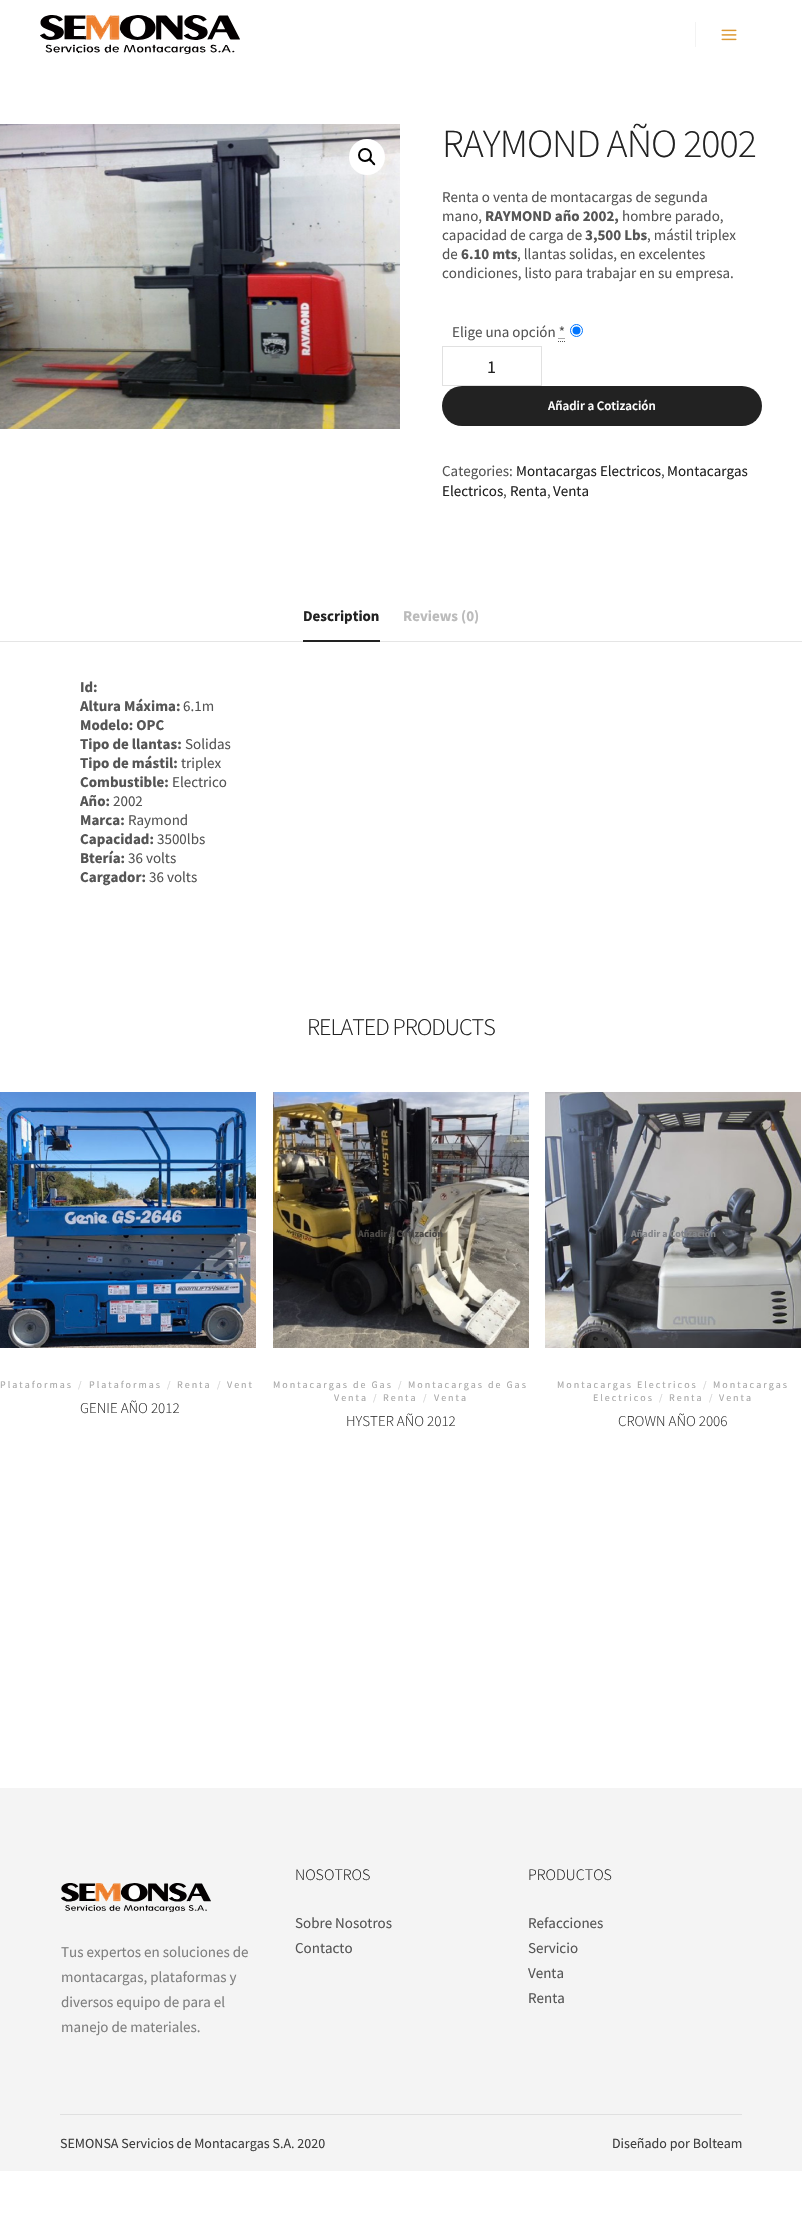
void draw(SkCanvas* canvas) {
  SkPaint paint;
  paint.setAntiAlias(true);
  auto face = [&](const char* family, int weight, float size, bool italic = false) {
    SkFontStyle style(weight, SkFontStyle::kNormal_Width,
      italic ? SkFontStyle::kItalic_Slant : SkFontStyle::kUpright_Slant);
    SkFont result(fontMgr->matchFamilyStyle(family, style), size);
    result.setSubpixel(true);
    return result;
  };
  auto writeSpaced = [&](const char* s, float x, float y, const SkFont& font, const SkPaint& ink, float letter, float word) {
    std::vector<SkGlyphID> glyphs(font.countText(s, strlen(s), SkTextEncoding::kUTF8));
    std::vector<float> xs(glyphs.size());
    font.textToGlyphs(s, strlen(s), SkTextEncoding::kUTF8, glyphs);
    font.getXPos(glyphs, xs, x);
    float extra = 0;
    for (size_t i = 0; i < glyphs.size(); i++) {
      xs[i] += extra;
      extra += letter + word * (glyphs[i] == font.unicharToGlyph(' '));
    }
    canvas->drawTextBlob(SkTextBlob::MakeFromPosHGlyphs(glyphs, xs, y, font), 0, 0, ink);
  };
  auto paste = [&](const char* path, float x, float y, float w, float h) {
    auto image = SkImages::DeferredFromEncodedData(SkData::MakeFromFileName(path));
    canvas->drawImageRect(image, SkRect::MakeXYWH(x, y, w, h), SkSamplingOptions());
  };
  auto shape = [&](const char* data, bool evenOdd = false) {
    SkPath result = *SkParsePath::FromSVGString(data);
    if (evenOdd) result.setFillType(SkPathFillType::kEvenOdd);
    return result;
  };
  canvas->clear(0xffffffff);
  paste("img/1.png", 40, 15, 200, 39);
  paint.setColor(0xfff3f3f3);
  canvas->drawRect(SkRect::MakeXYWH(695, 22, 1, 25), paint);
  paste("img/2.png", 721, 29, 16, 12);
  paste("img/3.png", 0, 124, 400, 305);
  paint.setColor(0xffffffff);
  canvas->drawCircle(367, 157, 18, paint);
  paint.setStroke(true);
  paint.setStrokeWidth(2);
  paint.setColor(0xff000000);
  canvas->drawCircle(365, 155, 6, paint);
  paint.setStroke(false);
  canvas->drawPath(shape("M369.5 159C370.5 158 372.5 160.5 373 161.5C373.5 162 376 163.5 375 165C374 166 372 163.5 371.5 162.5C371 162 368 160.5 369.5 159Z"), paint);
  paint.setStroke(true);
  paint.setStrokeWidth(1);
  paint.setColor(0xff555555);
  canvas->drawPath(shape("M558 341.5H559M560 341.5H561M562 341.5H563M564 341.5H565M558.5 338.5H559.5M560.5 338.5H561.5M562.5 338.5H563.5M564.5 338.5H565"), paint);
  paint.setColor(0xff0075ff);
  canvas->drawCircle(576.5f, 330.5f, 6, paint);
  paint.setStroke(false);
  canvas->drawCircle(576.5f, 330.5f, 4, paint);
  paint.setStroke(true);
  paint.setColor(0xffe1e1e1);
  canvas->drawRect(SkRect::MakeXYWH(442.5f, 346.5f, 99, 39), paint);
  paint.setStroke(false);
  paint.setColor(0xff222222);
  canvas->drawRoundRect(SkRect::MakeXYWH(442, 386, 320, 40), 20, 20, paint);
  paint.setColor(0xffe5e5e5);
  canvas->drawRect(SkRect::MakeXYWH(0, 641, 802, 1), paint);
  paint.setColor(0xff222222);
  canvas->drawRect(SkRect::MakeXYWH(303, 640, 77, 2), paint);
  paste("img/4.png", 0, 1092, 256, 256);
  paste("img/5.png", 273, 1092, 256, 256);
  paste("img/6.png", 545, 1092, 256, 256);
  paint.setColor(0xfff4f4f4);
  canvas->drawRect(SkRect::MakeXYWH(0, 1788, 802, 383), paint);
  paste("img/7.png", 61, 1883, 150, 29);
  paint.setColor(0xffe0e0e0);
  canvas->drawRect(SkRect::MakeXYWH(60, 2114, 682, 1), paint);
  auto f0 = face("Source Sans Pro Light", 300, 40);
  paint.setColor(0xff222222);
  writeSpaced("RAYMOND AÑO 2002", 442, 157, f0, paint, -1, 0);
  auto f1 = face("Source Sans Pro", 400, 15);
  paint.setColor(0xff555555);
  canvas->drawString("Renta o venta de montacargas de segunda", 442, 202, f1, paint);
  canvas->drawString("mano,", 442, 221, f1, paint);
  auto f2 = face("Source Sans Pro", 700, 15);
  canvas->drawString("RAYMOND año 2002,", 485, 221, f2, paint);
  canvas->drawString("hombre parado,", 622, 221, f1, paint);
  canvas->drawString("capacidad de carga de", 442, 240, f1, paint);
  canvas->drawString("3,500 Lbs", 585, 240, f2, paint);
  canvas->drawString(", mástil triplex", 647, 240, f1, paint);
  canvas->drawString("de", 442, 259, f1, paint);
  canvas->drawString("6.10 mts", 461, 259, f2, paint);
  {
    const struct { const char* s; float x, y; } items[] = {
      {", llantas solidas, en excelentes", 517, 259},
      {"condiciones, listo para trabajar en su empresa.", 442, 278},
      {"Elige una opción *", 452, 337},
    };
    for (auto [s, x, y] : items) {
      canvas->drawString(s, x, y, f1, paint);
    }
  }
  auto f3 = face("Source Sans Pro", 400, 18);
  paint.setColor(0xff222222);
  canvas->drawString("1", 487, 373, f3, paint);
  auto f4 = face("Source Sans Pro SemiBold", 600, 13);
  paint.setColor(0xffffffff);
  canvas->drawString("Añadir a Cotización", 548, 410, f4, paint);
  paint.setColor(0xff555555);
  canvas->drawString("Categories:", 442, 476, f1, paint);
  paint.setColor(0xff222222);
  canvas->drawString("Montacargas Electricos", 516, 476, f1, paint);
  paint.setColor(0xff555555);
  canvas->drawString(",", 661, 476, f1, paint);
  paint.setColor(0xff222222);
  canvas->drawString("Montacargas", 667, 476, f1, paint);
  canvas->drawString("Electricos", 442, 496, f1, paint);
  paint.setColor(0xff555555);
  canvas->drawString(",", 503, 496, f1, paint);
  paint.setColor(0xff222222);
  canvas->drawString("Renta", 510, 496, f1, paint);
  paint.setColor(0xff555555);
  canvas->drawString(",", 547, 496, f1, paint);
  paint.setColor(0xff222222);
  canvas->drawString("Venta", 553, 496, f1, paint);
  canvas->drawString("Description", 303, 621, f2, paint);
  paint.setColor(0xffbbbbbb);
  canvas->drawString("Reviews (0)", 403, 621, f2, paint);
  paint.setColor(0xff555555);
  canvas->drawString("Id:", 80, 692, f2, paint);
  canvas->drawString("Altura Máxima:", 80, 711, f2, paint);
  canvas->drawString("6.1m", 183, 711, f1, paint);
  canvas->drawString("Modelo: OPC", 80, 730, f2, paint);
  canvas->drawString("Tipo de llantas:", 80, 749, f2, paint);
  canvas->drawString("Solidas", 185, 749, f1, paint);
  canvas->drawString("Tipo de mástil:", 80, 768, f2, paint);
  canvas->drawString("triplex", 181, 768, f1, paint);
  canvas->drawString("Combustible:", 80, 787, f2, paint);
  canvas->drawString("Electrico", 172, 787, f1, paint);
  canvas->drawString("Año:", 80, 806, f2, paint);
  canvas->drawString("2002", 113, 806, f1, paint);
  canvas->drawString("Marca:", 80, 825, f2, paint);
  canvas->drawString("Raymond", 128, 825, f1, paint);
  canvas->drawString("Capacidad:", 80, 844, f2, paint);
  canvas->drawString("3500lbs", 157, 844, f1, paint);
  canvas->drawString("Btería:", 80, 863, f2, paint);
  canvas->drawString("36 volts", 128, 863, f1, paint);
  canvas->drawString("Cargador:", 80, 882, f2, paint);
  canvas->drawString("36 volts", 149, 882, f1, paint);
  auto f5 = face("Source Sans Pro Light", 300, 24);
  paint.setColor(0xff222222);
  writeSpaced("RELATED PRODUCTS", 307, 1035, f5, paint, -1, 0);
  auto f6 = face("Source Sans Pro", 400, 10);
  paint.setColor(0xffa7a7a7);
  writeSpaced("Plataformas", 0, 1388, f6, paint, 2, 0);
  paint.setColor(0xffd3d3d3);
  writeSpaced("/", 78, 1388, f6, paint, 2, 0);
  paint.setColor(0xffa7a7a7);
  writeSpaced("Plataformas", 89, 1388, f6, paint, 2, 0);
  paint.setColor(0xffd3d3d3);
  writeSpaced("/", 167, 1388, f6, paint, 2, 0);
  paint.setColor(0xffa7a7a7);
  writeSpaced("Renta", 177, 1388, f6, paint, 2, 0);
  paint.setColor(0xffd3d3d3);
  writeSpaced("/", 217, 1388, f6, paint, 2, 0);
  paint.setColor(0xffa7a7a7);
  writeSpaced("Vent", 227, 1388, f6, paint, 2, 0);
  auto f7 = face("Source Sans Pro Light", 300, 15);
  paint.setColor(0xff323232);
  canvas->drawString("GENIE AÑO 2012", 80, 1413, f7, paint);
  auto f8 = face("Source Sans Pro", 700, 10);
  paint.setColor(0xff4b4946);
  canvas->drawString("Añadir a Cotización", 358, 1237, f8, paint);
  paint.setColor(0xffa7a7a7);
  writeSpaced("Montacargas de Gas", 273, 1388, f6, paint, 2, 0);
  paint.setColor(0xffd3d3d3);
  writeSpaced("/", 398, 1388, f6, paint, 2, 0);
  paint.setColor(0xffa7a7a7);
  writeSpaced("Montacargas de Gas", 408, 1388, f6, paint, 2, 0);
  writeSpaced("Venta", 334, 1401, f6, paint, 2, 0);
  paint.setColor(0xffd3d3d3);
  writeSpaced("/", 373, 1401, f6, paint, 2, 0);
  paint.setColor(0xffa7a7a7);
  writeSpaced("Renta", 383, 1401, f6, paint, 2, 0);
  paint.setColor(0xffd3d3d3);
  writeSpaced("/", 423, 1401, f6, paint, 2, 0);
  paint.setColor(0xffa7a7a7);
  writeSpaced("Venta", 434, 1401, f6, paint, 2, 0);
  paint.setColor(0xff323232);
  canvas->drawString("HYSTER AÑO 2012", 346, 1426, f7, paint);
  paint.setColor(0xff838589);
  canvas->drawString("Añadir a Cotización", 631, 1237, f8, paint);
  paint.setColor(0xffa7a7a7);
  writeSpaced("Montacargas Electricos", 557, 1388, f6, paint, 2, 0);
  paint.setColor(0xffd3d3d3);
  writeSpaced("/", 703, 1388, f6, paint, 2, 0);
  paint.setColor(0xffa7a7a7);
  writeSpaced("Montacargas", 713, 1388, f6, paint, 2, 0);
  writeSpaced("Electricos", 593, 1401, f6, paint, 2, 0);
  paint.setColor(0xffd3d3d3);
  writeSpaced("/", 659, 1401, f6, paint, 2, 0);
  paint.setColor(0xffa7a7a7);
  writeSpaced("Renta", 669, 1401, f6, paint, 2, 0);
  paint.setColor(0xffd3d3d3);
  writeSpaced("/", 709, 1401, f6, paint, 2, 0);
  paint.setColor(0xffa7a7a7);
  writeSpaced("Venta", 719, 1401, f6, paint, 2, 0);
  paint.setColor(0xff323232);
  canvas->drawString("CROWN AÑO 2006", 618, 1426, f7, paint);
  paint.setColor(0xff7f7f7f);
  {
    const struct { const char* s; float x, y; } items[] = {
      {"Tus expertos en soluciones de", 61, 1957},
      {"montacargas, plataformas y", 61, 1982},
      {"diversos equipo de para el", 61, 2007},
      {"manejo de materiales.", 61, 2032},
    };
    for (auto [s, x, y] : items) {
      canvas->drawString(s, x, y, f1, paint);
    }
  }
  auto f9 = face("Source Sans Pro Light", 300, 16);
  paint.setColor(0xff222222);
  canvas->drawString("NOSOTROS", 295, 1880, f9, paint);
  paint.setColor(0xff555555);
  canvas->drawString("Sobre Nosotros", 295, 1928, f1, paint);
  canvas->drawString("Contacto", 295, 1953, f1, paint);
  paint.setColor(0xff222222);
  canvas->drawString("PRODUCTOS", 528, 1880, f9, paint);
  paint.setColor(0xff555555);
  {
    const struct { const char* s; float x, y; } items[] = {
      {"Refacciones", 528, 1928},
      {"Servicio", 528, 1953},
      {"Venta", 528, 1978},
      {"Renta", 528, 2003},
    };
    for (auto [s, x, y] : items) {
      canvas->drawString(s, x, y, f1, paint);
    }
  }
  auto f10 = face("Source Sans Pro", 400, 14);
  paint.setColor(0xff3f3f3f);
  canvas->drawString("SEMONSA Servicios de Montacargas S.A. 2020", 60, 2148, f10, paint);
  canvas->drawString("Diseñado por Bolteam", 612, 2148, f10, paint);
}
